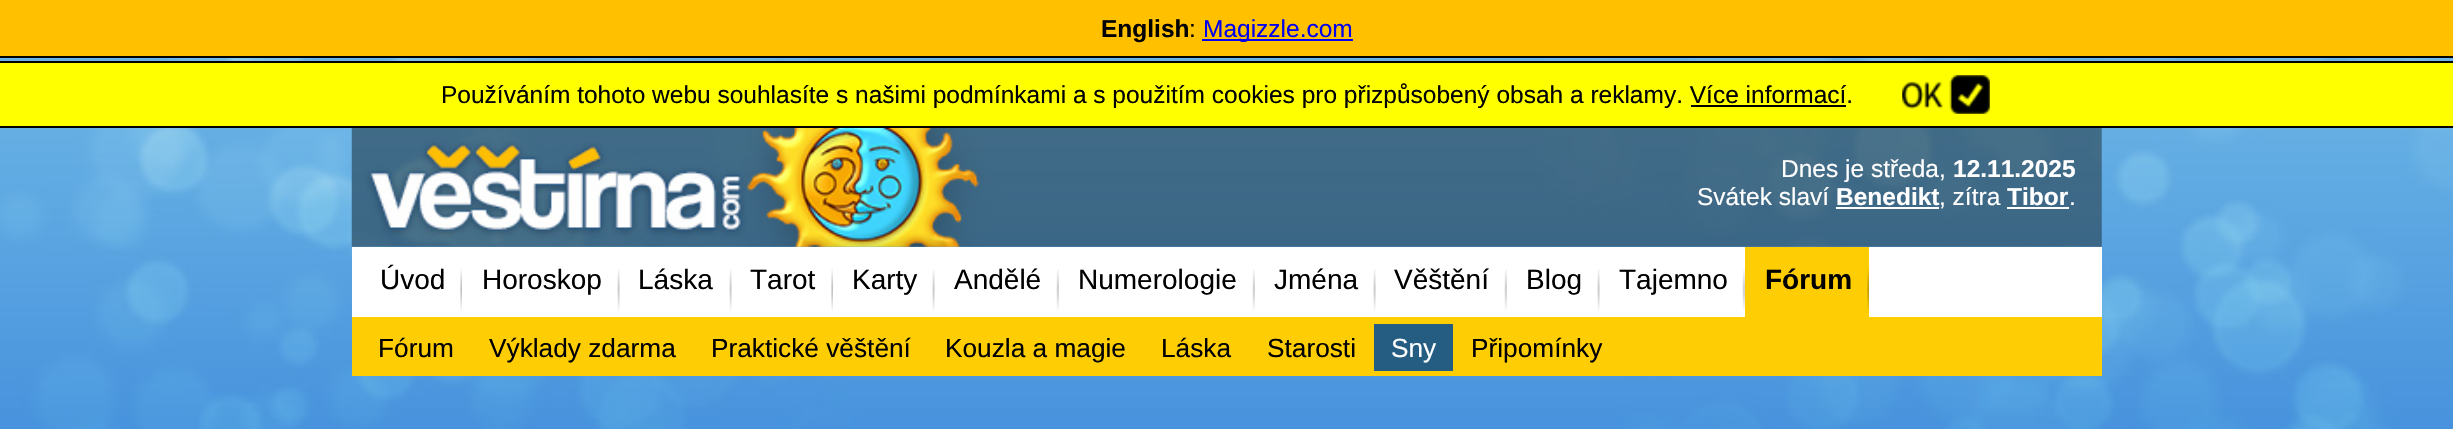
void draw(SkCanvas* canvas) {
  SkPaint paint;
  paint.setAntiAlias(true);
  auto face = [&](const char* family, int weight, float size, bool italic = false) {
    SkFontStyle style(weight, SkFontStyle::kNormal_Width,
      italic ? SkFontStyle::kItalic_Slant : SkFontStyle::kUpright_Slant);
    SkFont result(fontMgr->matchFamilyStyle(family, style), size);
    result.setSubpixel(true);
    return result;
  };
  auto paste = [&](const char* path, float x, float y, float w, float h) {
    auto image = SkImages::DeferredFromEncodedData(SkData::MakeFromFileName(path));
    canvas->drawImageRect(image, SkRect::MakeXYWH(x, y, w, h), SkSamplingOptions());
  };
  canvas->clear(0xffffffff);
  paste("img/1.png", 0, 58, 2453, 371);
  {
    const struct { float x, y, w, h; SkColor color; } items[] = {
      {0, 0, 2453, 56, 0xffffc000},
      {0, 56, 2453, 2, 0xff000000},
      {1202, 39, 151, 2, 0xff0000ee},
      {0, 63, 2453, 63, 0xffffff00},
      {0, 61, 2453, 2, 0xff000000},
      {0, 126, 2453, 2, 0xff000000},
      {1691, 105, 155, 2, 0xff000000},
    };
    for (auto [x, y, w, h, color] : items) {
      paint.setColor(color);
      canvas->drawRect(SkRect::MakeXYWH(x, y, w, h), paint);
    }
  }
  paste("img/2.png", 1902, 75, 88, 39);
  paste("img/3.png", 351, 128, 1751, 119);
  {
    const struct { float x, y, w, h; SkColor color; } items[] = {
      {1836, 207, 103, 2, 0xffffffff},
      {2007, 207, 62, 2, 0xffffffff},
      {352, 247, 1750, 70, 0xffffffff},
      {352, 317, 1750, 59, 0xffffcd03},
    };
    for (auto [x, y, w, h, color] : items) {
      paint.setColor(color);
      canvas->drawRect(SkRect::MakeXYWH(x, y, w, h), paint);
    }
  }
  paste("img/4.png", 460, 268, 2, 43);
  paste("img/5.png", 617, 269, 3, 42);
  paste("img/5.png", 729, 269, 3, 42);
  paste("img/4.png", 831, 268, 2, 43);
  paste("img/5.png", 932, 269, 3, 42);
  paste("img/6.png", 1056, 269, 3, 41);
  paste("img/6.png", 1252, 269, 3, 41);
  paste("img/5.png", 1373, 269, 3, 42);
  paste("img/6.png", 1504, 269, 3, 41);
  paste("img/5.png", 1597, 269, 3, 42);
  paste("img/6.png", 1742, 269, 3, 41);
  canvas->drawRect(SkRect::MakeXYWH(1745, 247, 124, 70), paint);
  paste("img/7.png", 1867, 268, 2, 43);
  paint.setColor(0xff255d82);
  canvas->drawRect(SkRect::MakeXYWH(1374, 324, 79, 47), paint);
  auto f0 = face("Liberation Sans", 700, 24.5f);
  paint.setColor(0xff000000);
  canvas->drawString("English", 1101, 37, f0, paint);
  auto f1 = face("Liberation Sans", 400, 24.5f);
  canvas->drawString(":", 1189, 37, f1, paint);
  paint.setColor(0xff0000ee);
  canvas->drawString("Magizzle.com", 1203, 37, f1, paint);
  paint.setColor(0xff000000);
  canvas->drawString("Používáním tohoto webu souhlasíte s našimi podmínkami a s použitím cookies pro přizpůsobený obsah a reklamy. Více informací.", 441, 103, f1, paint);
  paint.setColor(0xffffffff);
  canvas->drawString("Dnes je středa,", 1781, 177, f1, paint);
  canvas->drawString("12.11.2025", 1953, 177, f0, paint);
  canvas->drawString("Svátek slaví", 1697, 205, f1, paint);
  canvas->drawString("Benedikt", 1836, 205, f0, paint);
  canvas->drawString(", zítra", 1939, 205, f1, paint);
  canvas->drawString("Tibor", 2007, 205, f0, paint);
  canvas->drawString(".", 2069, 205, f1, paint);
  auto f2 = face("Liberation Sans", 400, 28);
  paint.setColor(0xff000000);
  {
    const struct { const char* s; float x, y; } items[] = {
      {"Úvod", 380, 289},
      {"Horoskop", 482, 289},
      {"Láska", 638, 289},
      {"Tarot", 750, 289},
      {"Karty", 852, 289},
      {"Andělé", 954, 289},
      {"Numerologie", 1078, 289},
      {"Jména", 1274, 289},
      {"Věštění", 1394, 289},
      {"Blog", 1526, 289},
      {"Tajemno", 1619, 289},
    };
    for (auto [s, x, y] : items) {
      canvas->drawString(s, x, y, f2, paint);
    }
  }
  auto f3 = face("Liberation Sans", 700, 28);
  canvas->drawString("Fórum", 1765, 289, f3, paint);
  auto f4 = face("Liberation Sans", 400, 26.25f);
  {
    const struct { const char* s; float x, y; } items[] = {
      {"Fórum", 378, 357},
      {"Výklady zdarma", 489, 357},
      {"Praktické věštění", 711, 357},
      {"Kouzla a magie", 945, 357},
      {"Láska", 1161, 357},
      {"Starosti", 1267, 357},
    };
    for (auto [s, x, y] : items) {
      canvas->drawString(s, x, y, f4, paint);
    }
  }
  paint.setColor(0xffffffff);
  canvas->drawString("Sny", 1391, 357, f4, paint);
  paint.setColor(0xff000000);
  canvas->drawString("Připomínky", 1471, 357, f4, paint);
}
